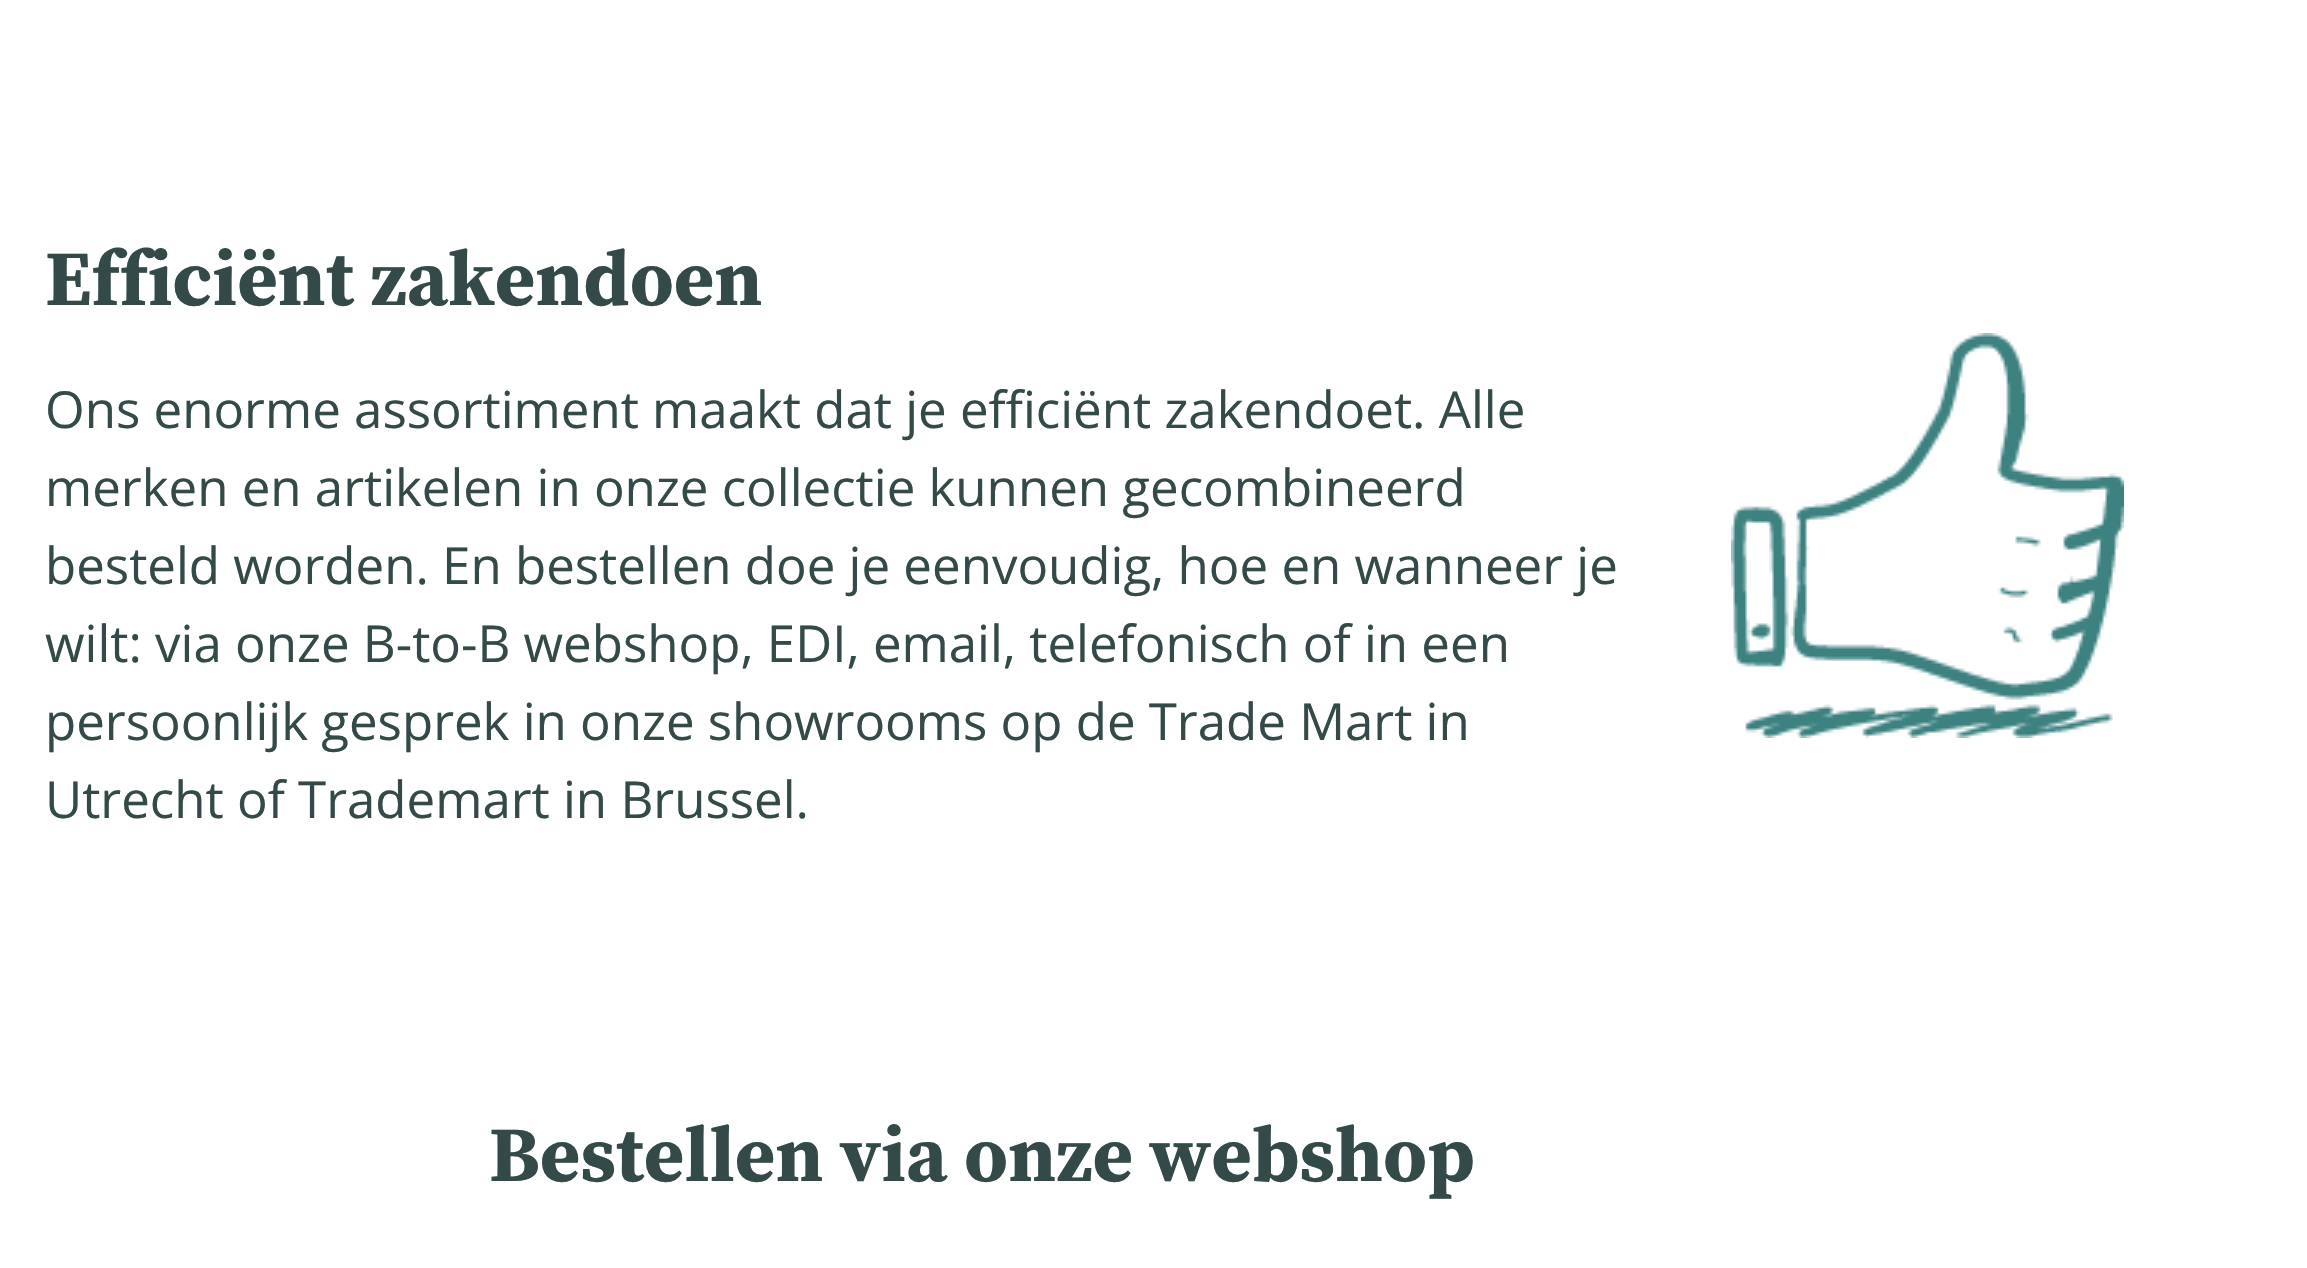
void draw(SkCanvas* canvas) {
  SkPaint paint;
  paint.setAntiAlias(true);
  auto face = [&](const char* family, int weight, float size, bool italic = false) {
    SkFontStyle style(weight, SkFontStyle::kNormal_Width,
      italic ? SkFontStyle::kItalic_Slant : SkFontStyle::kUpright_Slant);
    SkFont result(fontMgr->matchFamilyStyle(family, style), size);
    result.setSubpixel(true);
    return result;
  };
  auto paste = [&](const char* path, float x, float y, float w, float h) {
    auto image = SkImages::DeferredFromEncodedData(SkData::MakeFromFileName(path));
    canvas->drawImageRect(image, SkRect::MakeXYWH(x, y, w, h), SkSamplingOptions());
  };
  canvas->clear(0xffffffff);
  paste("img/1.png", 1731, 333, 393, 405);
  auto f0 = face("Source Serif Pro", 700, 78);
  paint.setColor(0xff334a48);
  canvas->drawString("Efficiënt zakendoen", 45, 305, f0, paint);
  auto f1 = face("Open Sans", 400, 51);
  {
    const struct { const char* s; float x, y; } items[] = {
      {"Ons enorme assortiment maakt dat je efficiënt zakendoet. Alle", 45, 428},
      {"merken en artikelen in onze collectie kunnen gecombineerd", 45, 506},
      {"besteld worden. En bestellen doe je eenvoudig, hoe en wanneer je", 45, 584},
      {"wilt: via onze B-to-B webshop, EDI, email, telefonisch of in een", 45, 662},
      {"persoonlijk gesprek in onze showrooms op de Trade Mart in", 45, 740},
      {"Utrecht of Trademart in Brussel.", 45, 818},
    };
    for (auto [s, x, y] : items) {
      canvas->drawString(s, x, y, f1, paint);
    }
  }
  canvas->drawString("Bestellen via onze webshop", 489, 1181, f0, paint);
}
